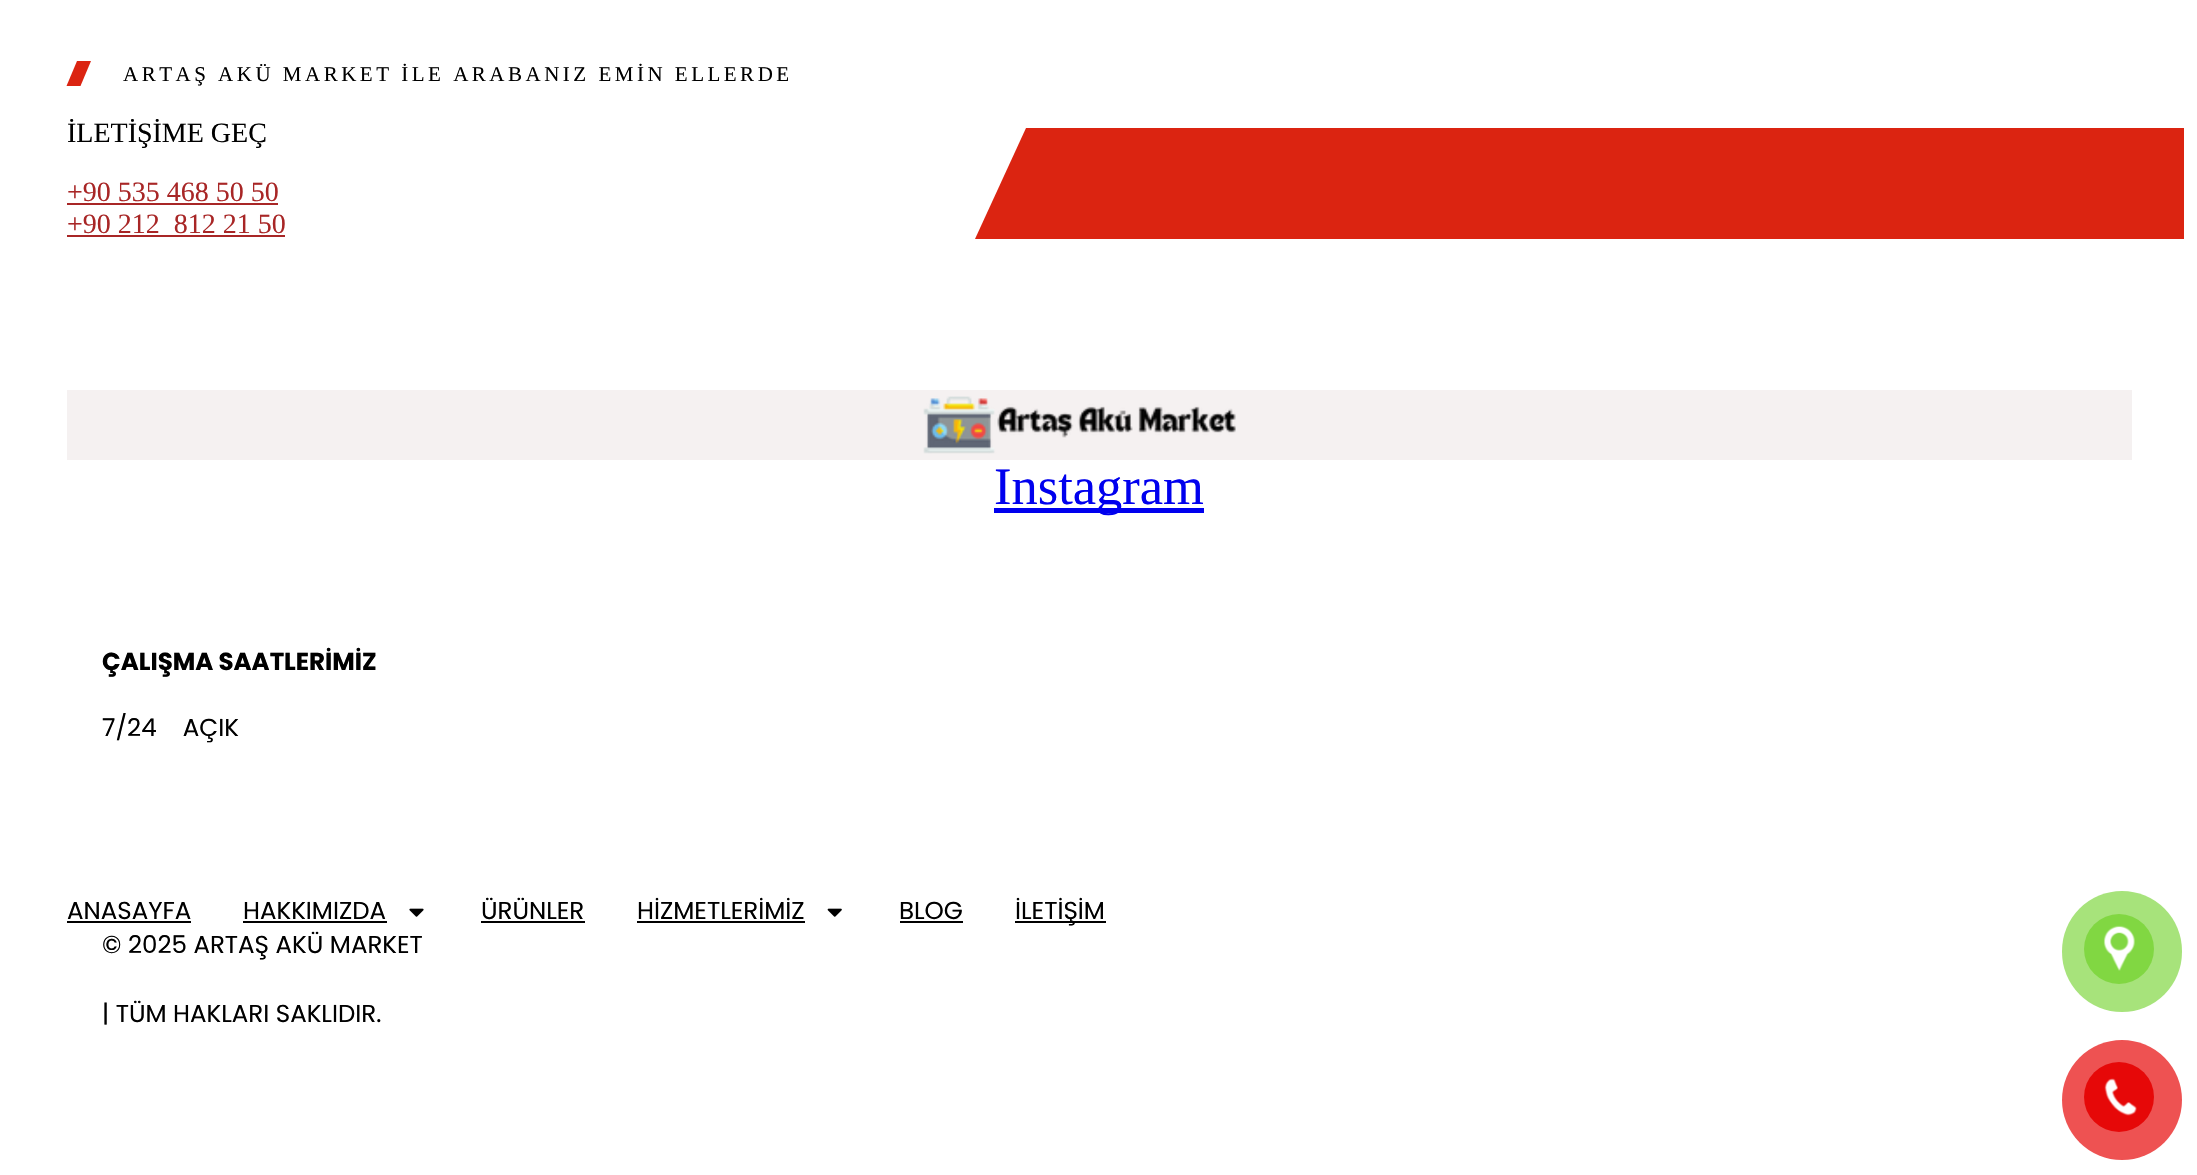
void draw(SkCanvas* canvas) {
  SkPaint paint;
  paint.setAntiAlias(true);
  auto face = [&](const char* family, int weight, float size, bool italic = false) {
    SkFontStyle style(weight, SkFontStyle::kNormal_Width,
      italic ? SkFontStyle::kItalic_Slant : SkFontStyle::kUpright_Slant);
    SkFont result(fontMgr->matchFamilyStyle(family, style), size);
    result.setSubpixel(true);
    return result;
  };
  auto writeSpaced = [&](const char* s, float x, float y, const SkFont& font, const SkPaint& ink, float letter, float word) {
    std::vector<SkGlyphID> glyphs(font.countText(s, strlen(s), SkTextEncoding::kUTF8));
    std::vector<float> xs(glyphs.size());
    font.textToGlyphs(s, strlen(s), SkTextEncoding::kUTF8, glyphs);
    font.getXPos(glyphs, xs, x);
    float extra = 0;
    for (size_t i = 0; i < glyphs.size(); i++) {
      xs[i] += extra;
      extra += letter + word * (glyphs[i] == font.unicharToGlyph(' '));
    }
    canvas->drawTextBlob(SkTextBlob::MakeFromPosHGlyphs(glyphs, xs, y, font), 0, 0, ink);
  };
  auto paste = [&](const char* path, float x, float y, float w, float h) {
    auto image = SkImages::DeferredFromEncodedData(SkData::MakeFromFileName(path));
    canvas->drawImageRect(image, SkRect::MakeXYWH(x, y, w, h), SkSamplingOptions());
  };
  auto shape = [&](const char* data, bool evenOdd = false) {
    SkPath result = *SkParsePath::FromSVGString(data);
    if (evenOdd) result.setFillType(SkPathFillType::kEvenOdd);
    return result;
  };
  canvas->clear(0xffffffff);
  paint.setColor(0xffdb2411);
  canvas->drawPath(shape("M1026 128H2184V239H975Z", true), paint);
  canvas->drawPath(shape("M77 61H91L80.5 86H66.5Z", true), paint);
  {
    const struct { float x, y, w, h; SkColor color; } items[] = {
      {67, 203, 211, 2, 0xffa82626},
      {67, 235, 218, 2, 0xffa82626},
      {67, 390, 2065, 70, 0xfff5f1f1},
    };
    for (auto [x, y, w, h, color] : items) {
      paint.setColor(color);
      canvas->drawRect(SkRect::MakeXYWH(x, y, w, h), paint);
    }
  }
  paste("img/1.png", 923, 396, 313, 58);
  {
    const struct { float x, y, w, h; SkColor color; } items[] = {
      {994, 508, 210, 5, 0xff0000ee},
      {67, 921, 124, 2, 0xff000000},
      {243, 921, 144, 2, 0xff000000},
    };
    for (auto [x, y, w, h, color] : items) {
      paint.setColor(color);
      canvas->drawRect(SkRect::MakeXYWH(x, y, w, h), paint);
    }
  }
  paste("img/2.png", 409, 908, 15, 9);
  canvas->drawRect(SkRect::MakeXYWH(481, 921, 104, 2), paint);
  canvas->drawRect(SkRect::MakeXYWH(637, 921, 168, 2), paint);
  paste("img/3.png", 827, 908, 15, 9);
  canvas->drawRect(SkRect::MakeXYWH(900, 921, 63, 2), paint);
  canvas->drawRect(SkRect::MakeXYWH(1015, 921, 91, 2), paint);
  paint.setColor(0xffa7e37b);
  canvas->drawRoundRect(SkRect::MakeXYWH(2062, 891, 120, 121), 60, 60, paint);
  paint.setColor(0xff81d742);
  canvas->drawCircle(2119, 949, 35, paint);
  paste("img/4.png", 2103, 925, 32, 46);
  paint.setColor(0xffee5252);
  canvas->drawCircle(2122, 1100, 60, paint);
  paint.setColor(0xffe60808);
  canvas->drawCircle(2119, 1097, 35, paint);
  paste("img/5.png", 2104, 1078, 33, 38);
  auto f0 = face("Liberation Serif", 400, 21);
  paint.setColor(0xff000000);
  writeSpaced("ARTAŞ AKÜ MARKET İLE ARABANIZ EMİN ELLERDE", 123, 81, f0, paint, 3.5f, 0);
  auto f1 = face("Liberation Serif", 400, 28);
  canvas->drawString("İLETİŞİME GEÇ", 67, 142, f1, paint);
  paint.setColor(0xffa82626);
  canvas->drawString("+90 535 468 50 50", 67, 201, f1, paint);
  canvas->drawString("+90 212  812 21 50", 67, 233, f1, paint);
  auto f2 = face("Liberation Serif", 400, 52.5f);
  paint.setColor(0xff0000ee);
  canvas->drawString("Instagram", 994, 504, f2, paint);
  auto f3 = face("Poppins", 700, 24.5f);
  paint.setColor(0xff000000);
  canvas->drawString("ÇALIŞMA SAATLERİMİZ", 102, 670, f3, paint);
  auto f4 = face("Poppins", 400, 24.5f);
  {
    const struct { const char* s; float x, y; } items[] = {
      {"7/24    AÇIK", 102, 736},
      {"ANASAYFA", 67, 919},
      {"HAKKIMIZDA", 243, 919},
      {"ÜRÜNLER", 481, 919},
      {"HİZMETLERİMİZ", 637, 919},
      {"BLOG", 899, 919},
      {"İLETİŞİM", 1015, 919},
      {"© 2025 ARTAŞ AKÜ MARKET", 102, 953},
      {"| TÜM HAKLARI SAKLIDIR.", 102, 1022},
    };
    for (auto [s, x, y] : items) {
      canvas->drawString(s, x, y, f4, paint);
    }
  }
}
